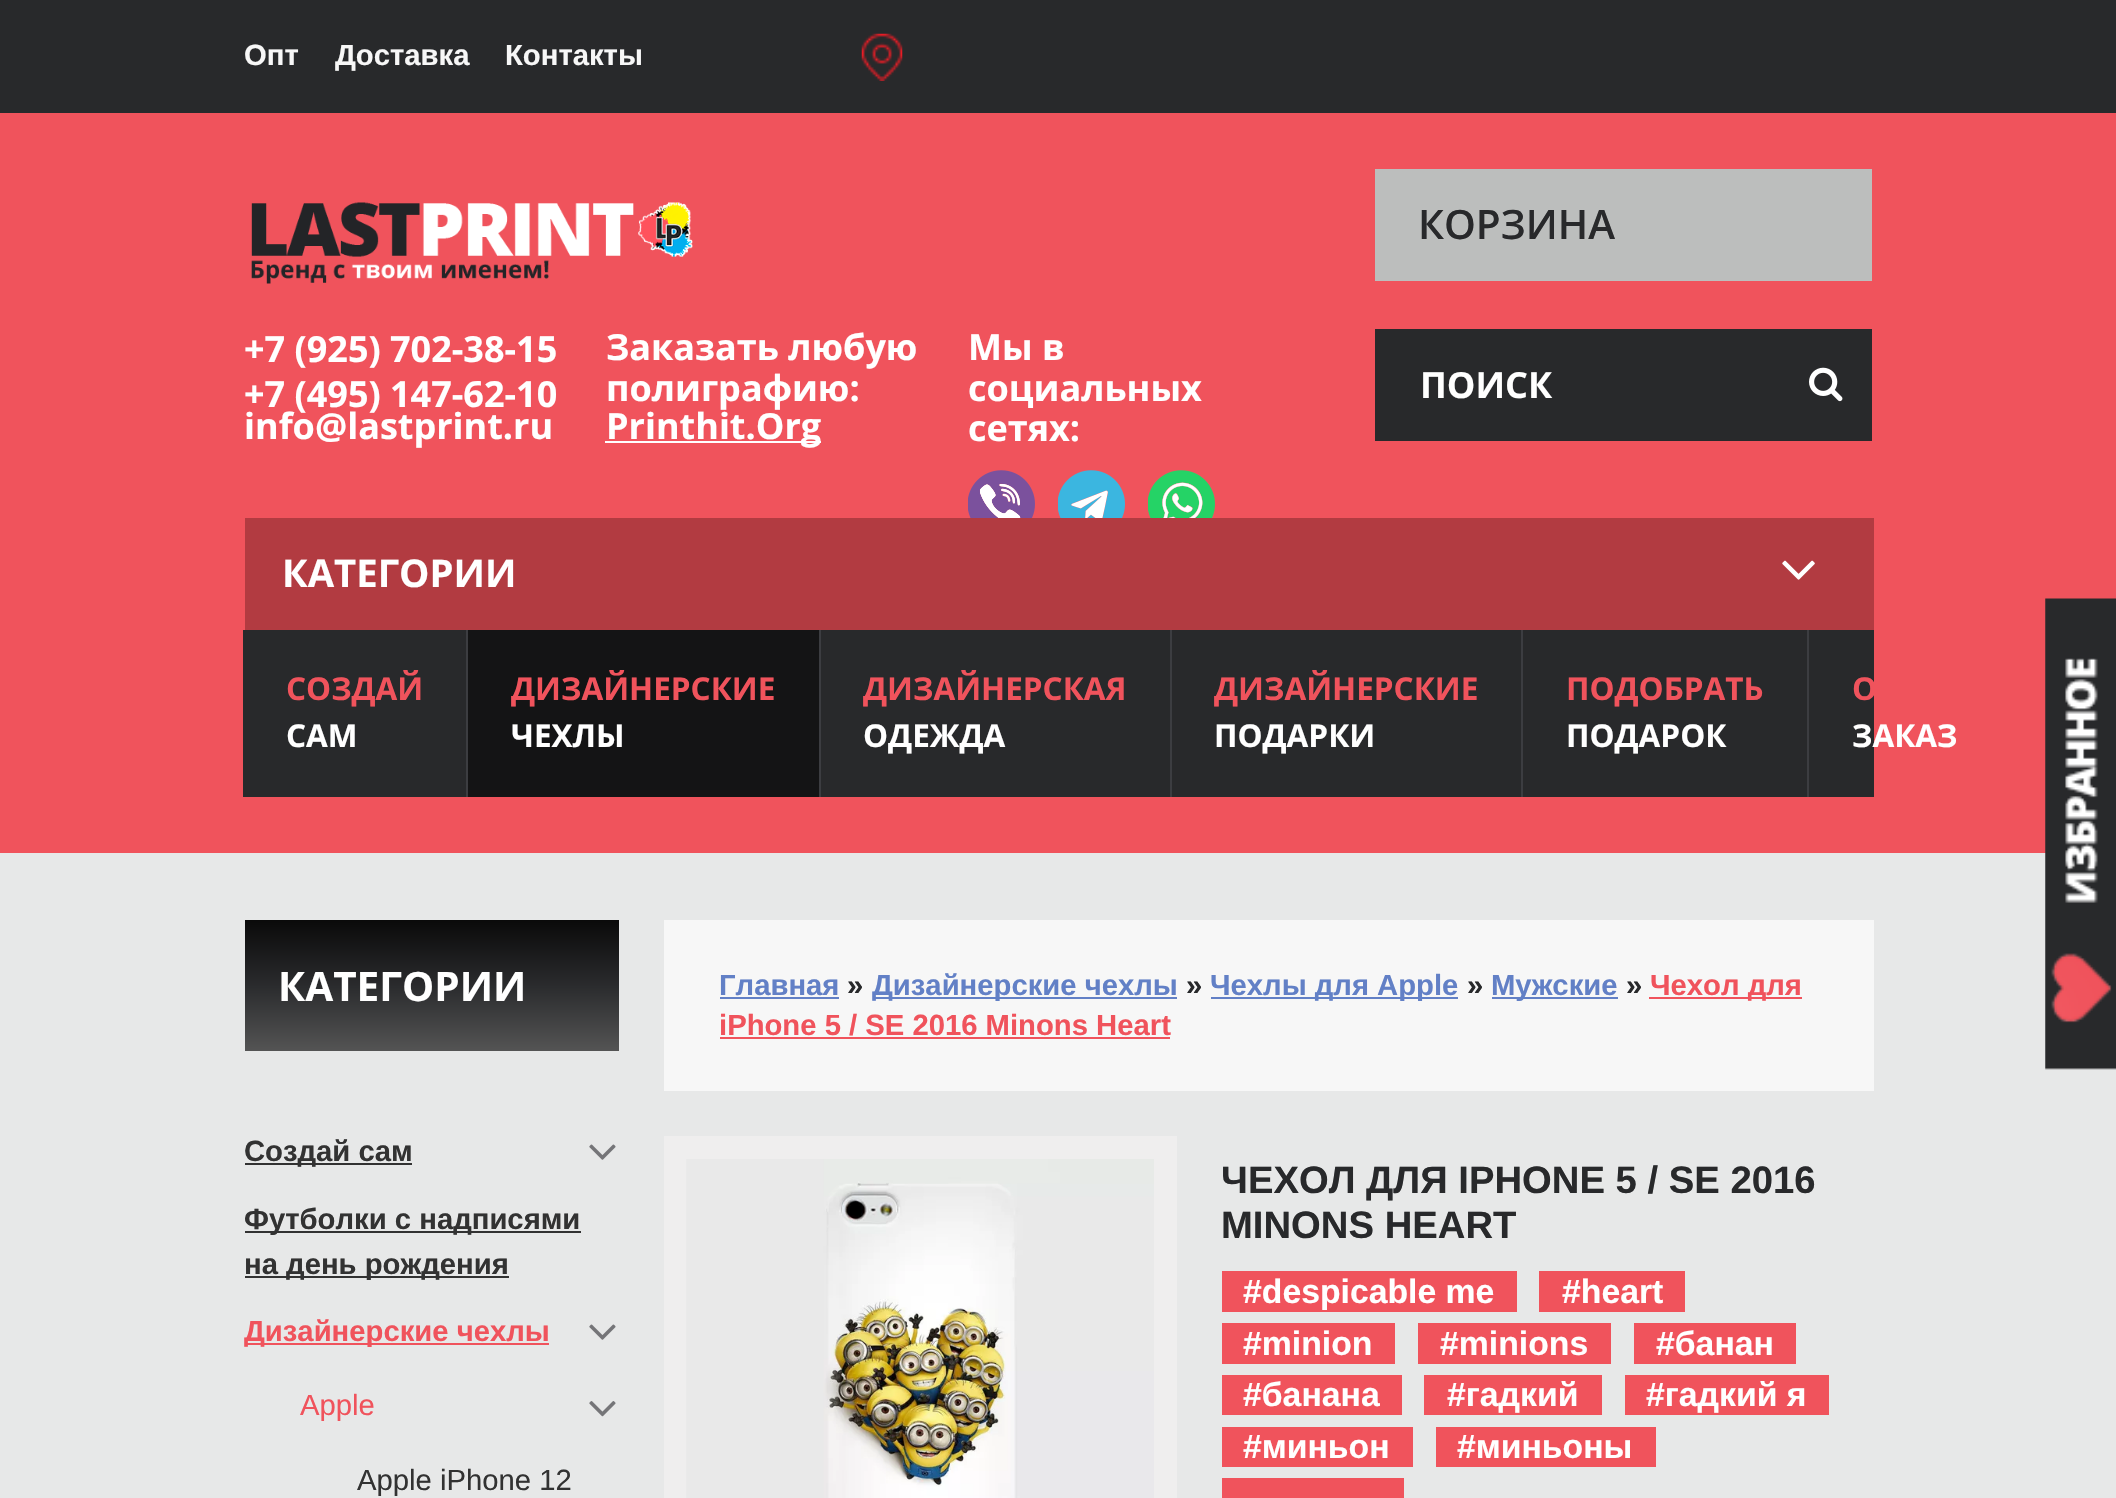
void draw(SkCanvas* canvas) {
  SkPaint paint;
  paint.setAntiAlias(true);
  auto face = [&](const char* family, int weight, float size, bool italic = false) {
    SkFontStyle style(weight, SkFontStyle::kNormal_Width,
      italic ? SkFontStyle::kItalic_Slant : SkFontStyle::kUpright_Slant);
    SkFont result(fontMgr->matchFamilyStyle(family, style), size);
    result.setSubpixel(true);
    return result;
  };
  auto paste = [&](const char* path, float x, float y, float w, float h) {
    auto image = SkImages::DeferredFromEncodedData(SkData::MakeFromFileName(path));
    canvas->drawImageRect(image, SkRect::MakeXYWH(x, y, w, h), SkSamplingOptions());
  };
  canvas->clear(0xfff0535c);
  paint.setColor(0xff28292b);
  canvas->drawRect(SkRect::MakeXYWH(0, 0, 2116, 113), paint);
  paste("img/1.png", 861, 33, 42, 48);
  paste("img/2.png", 251, 202, 442, 82);
  paint.setColor(0xffbcbebd);
  canvas->drawRect(SkRect::MakeXYWH(1375, 169, 497, 112), paint);
  paint.setColor(0xffffffff);
  canvas->drawRect(SkRect::MakeXYWH(605, 441, 216, 2), paint);
  paste("img/3.png", 968, 470, 67, 48);
  paste("img/4.png", 1058, 470, 67, 48);
  paste("img/5.png", 1148, 470, 67, 48);
  paint.setColor(0xff28292b);
  canvas->drawRect(SkRect::MakeXYWH(1375, 329, 497, 112), paint);
  paste("img/6.png", 1809, 367, 34, 35);
  paint.setColor(0xffb23b41);
  canvas->drawRect(SkRect::MakeXYWH(245, 518, 1629, 112), paint);
  paste("img/7.png", 1782, 560, 33, 20);
  {
    const struct { float x, y, w, h; SkColor color; } items[] = {
      {243, 630, 1631, 167, 0xff28292b},
      {466, 630, 2, 167, 0xff3c3d41},
      {468, 630, 351, 167, 0xff141415},
      {819, 630, 2, 167, 0xff3c3d41},
      {1170, 630, 2, 167, 0xff3c3d41},
      {1521, 630, 2, 167, 0xff3c3d41},
      {1807, 630, 2, 167, 0xff3c3d41},
      {0, 853, 2116, 645, 0xffe7e8e8},
    };
    for (auto [x, y, w, h, color] : items) {
      paint.setColor(color);
      canvas->drawRect(SkRect::MakeXYWH(x, y, w, h), paint);
    }
  }
  paste("img/8.png", 2045, 598, 71, 472);
  {
    const SkColor colors[] = {0xff0a0a0a, 0xff2a2b2d, 0xff545454};
    const float stops[] = {0, 0.5f, 1};
    const SkPoint ends[] = {{432, 920}, {432, 1051}};
    paint.setShader(SkGradientShader::MakeLinear(ends, colors, stops, 3, SkTileMode::kClamp));
    paint.setAlpha(255);
  }
  canvas->drawRect(SkRect::MakeXYWH(245, 920, 374, 131), paint);
  paint.setShader(nullptr);
  paint.setColor(0xff323232);
  canvas->drawRect(SkRect::MakeXYWH(245, 1163, 167, 2), paint);
  paste("img/9.png", 589, 1144, 27, 16);
  {
    const struct { float x, y, w, h; SkColor color; } items[] = {
      {245, 1231, 336, 2, 0xff323232},
      {245, 1276, 264, 2, 0xff323232},
      {245, 1343, 304, 2, 0xfff0535c},
    };
    for (auto [x, y, w, h, color] : items) {
      paint.setColor(color);
      canvas->drawRect(SkRect::MakeXYWH(x, y, w, h), paint);
    }
  }
  paste("img/9.png", 589, 1324, 27, 16);
  paste("img/10.png", 589, 1401, 27, 16);
  {
    const struct { float x, y, w, h; SkColor color; } items[] = {
      {664, 920, 1210, 171, 0xfff7f7f7},
      {720, 997, 119, 2, 0xff6280c6},
      {873, 997, 304, 2, 0xff6280c6},
      {1211, 997, 247, 2, 0xff6280c6},
      {1492, 997, 126, 2, 0xff6280c6},
      {1649, 997, 153, 2, 0xfff0535c},
      {720, 1037, 450, 2, 0xfff0535c},
      {664, 1136, 513, 362, 0xffefeeee},
    };
    for (auto [x, y, w, h, color] : items) {
      paint.setColor(color);
      canvas->drawRect(SkRect::MakeXYWH(x, y, w, h), paint);
    }
  }
  paste("img/11.png", 686, 1159, 468, 339);
  {
    const struct { float x, y, w, h; SkColor color; } items[] = {
      {1222, 1271, 295, 41, 0xfff0535c},
      {1539, 1271, 146, 41, 0xfff0535c},
      {1222, 1323, 173, 41, 0xfff0535c},
      {1418, 1323, 193, 41, 0xfff0535c},
      {1634, 1323, 162, 41, 0xfff0535c},
      {1222, 1375, 180, 40, 0xfff0535c},
      {1424, 1375, 178, 40, 0xfff0535c},
      {1625, 1375, 204, 40, 0xfff0535c},
      {1222, 1427, 191, 40, 0xfff0535c},
      {1436, 1427, 220, 40, 0xfff0535c},
      {1222, 1478, 182, 20, 0xfff0535c},
    };
    for (auto [x, y, w, h, color] : items) {
      paint.setColor(color);
      canvas->drawRect(SkRect::MakeXYWH(x, y, w, h), paint);
    }
  }
  auto f0 = face("Liberation Sans", 700, 29.25f);
  paint.setColor(0xfff7f7f7);
  {
    const struct { const char* s; float x, y; } items[] = {
      {"Опт", 244, 65},
      {"Доставка", 335, 65},
      {"Контакты", 505, 65},
    };
    for (auto [s, x, y] : items) {
      canvas->drawString(s, x, y, f0, paint);
    }
  }
  auto f1 = face("Open Sans", 600, 40.5f);
  paint.setColor(0xff28292b);
  canvas->drawString("КОРЗИНА", 1418, 239, f1, paint);
  auto f2 = face("Open Sans", 700, 36);
  paint.setColor(0xffffffff);
  {
    const struct { const char* s; float x, y; } items[] = {
      {"+7 (925) 702-38-15", 244, 362},
      {"+7 (495) 147-62-10", 244, 407},
      {"info@lastprint.ru", 244, 439},
      {"Заказать любую", 606, 360},
      {"полиграфию:", 606, 401},
      {"Printhit.Org", 606, 439},
      {"Мы в", 968, 360},
      {"социальных", 968, 401},
      {"сетях:", 968, 441},
      {"ПОИСК", 1420, 398},
    };
    for (auto [s, x, y] : items) {
      canvas->drawString(s, x, y, f2, paint);
    }
  }
  auto f3 = face("Open Sans", 700, 38.25f);
  canvas->drawString("КАТЕГОРИИ", 282, 587, f3, paint);
  auto f4 = face("Open Sans", 700, 31.5f);
  paint.setColor(0xfff0535c);
  canvas->drawString("СОЗДАЙ", 286, 700, f4, paint);
  paint.setColor(0xffffffff);
  canvas->drawString("САМ", 286, 747, f4, paint);
  paint.setColor(0xfff0535c);
  canvas->drawString("ДИЗАЙНЕРСКИЕ", 511, 700, f4, paint);
  paint.setColor(0xffffffff);
  canvas->drawString("ЧЕХЛЫ", 511, 747, f4, paint);
  paint.setColor(0xfff0535c);
  canvas->drawString("ДИЗАЙНЕРСКАЯ", 863, 700, f4, paint);
  paint.setColor(0xffffffff);
  canvas->drawString("ОДЕЖДА", 863, 747, f4, paint);
  paint.setColor(0xfff0535c);
  canvas->drawString("ДИЗАЙНЕРСКИЕ", 1214, 700, f4, paint);
  paint.setColor(0xffffffff);
  canvas->drawString("ПОДАРКИ", 1214, 747, f4, paint);
  paint.setColor(0xfff0535c);
  canvas->drawString("ПОДОБРАТЬ", 1566, 700, f4, paint);
  paint.setColor(0xffffffff);
  canvas->drawString("ПОДАРОК", 1566, 747, f4, paint);
  paint.setColor(0xfff0535c);
  canvas->drawString("О", 1852, 700, f4, paint);
  paint.setColor(0xffffffff);
  canvas->drawString("ЗАКАЗ", 1852, 747, f4, paint);
  auto f5 = face("Open Sans", 700, 40.5f);
  canvas->drawString("КАТЕГОРИИ", 278, 1001, f5, paint);
  paint.setColor(0xff323232);
  {
    const struct { const char* s; float x, y; } items[] = {
      {"Создай сам", 244, 1161},
      {"Футболки с надписями", 244, 1229},
      {"на день рождения", 244, 1274},
    };
    for (auto [s, x, y] : items) {
      canvas->drawString(s, x, y, f0, paint);
    }
  }
  paint.setColor(0xfff0535c);
  canvas->drawString("Дизайнерские чехлы", 244, 1341, f0, paint);
  auto f6 = face("Liberation Sans", 400, 29.25f);
  canvas->drawString("Apple", 300, 1415, f6, paint);
  paint.setColor(0xff323232);
  canvas->drawString("Apple iPhone 12", 357, 1490, f6, paint);
  paint.setColor(0xff6280c6);
  canvas->drawString("Главная", 719, 995, f0, paint);
  paint.setColor(0xff28292b);
  canvas->drawString("»", 847, 995, f0, paint);
  paint.setColor(0xff6280c6);
  canvas->drawString("Дизайнерские чехлы", 872, 995, f0, paint);
  paint.setColor(0xff28292b);
  canvas->drawString("»", 1186, 995, f0, paint);
  paint.setColor(0xff6280c6);
  canvas->drawString("Чехлы для Apple", 1210, 995, f0, paint);
  paint.setColor(0xff28292b);
  canvas->drawString("»", 1467, 995, f0, paint);
  paint.setColor(0xff6280c6);
  canvas->drawString("Мужские", 1491, 995, f0, paint);
  paint.setColor(0xff28292b);
  canvas->drawString("»", 1626, 995, f0, paint);
  paint.setColor(0xfff0535c);
  canvas->drawString("Чехол для", 1650, 995, f0, paint);
  canvas->drawString("iPhone 5 / SE 2016 Minons Heart", 719, 1035, f0, paint);
  auto f7 = face("Liberation Sans", 700, 38.25f);
  paint.setColor(0xff28292b);
  canvas->drawString("ЧЕХОЛ ДЛЯ IPHONE 5 / SE 2016", 1221, 1193, f7, paint);
  canvas->drawString("MINONS HEART", 1221, 1238, f7, paint);
  auto f8 = face("Liberation Sans", 700, 33.75f);
  paint.setColor(0xffffffff);
  {
    const struct { const char* s; float x, y; } items[] = {
      {"#despicable me", 1243, 1303},
      {"#heart", 1562, 1303},
      {"#minion", 1243, 1355},
      {"#minions", 1440, 1355},
      {"#банан", 1656, 1355},
      {"#банана", 1243, 1406},
      {"#гадкий", 1447, 1406},
      {"#гадкий я", 1646, 1406},
      {"#миньон", 1243, 1458},
      {"#миньоны", 1457, 1458},
    };
    for (auto [s, x, y] : items) {
      canvas->drawString(s, x, y, f8, paint);
    }
  }
}
